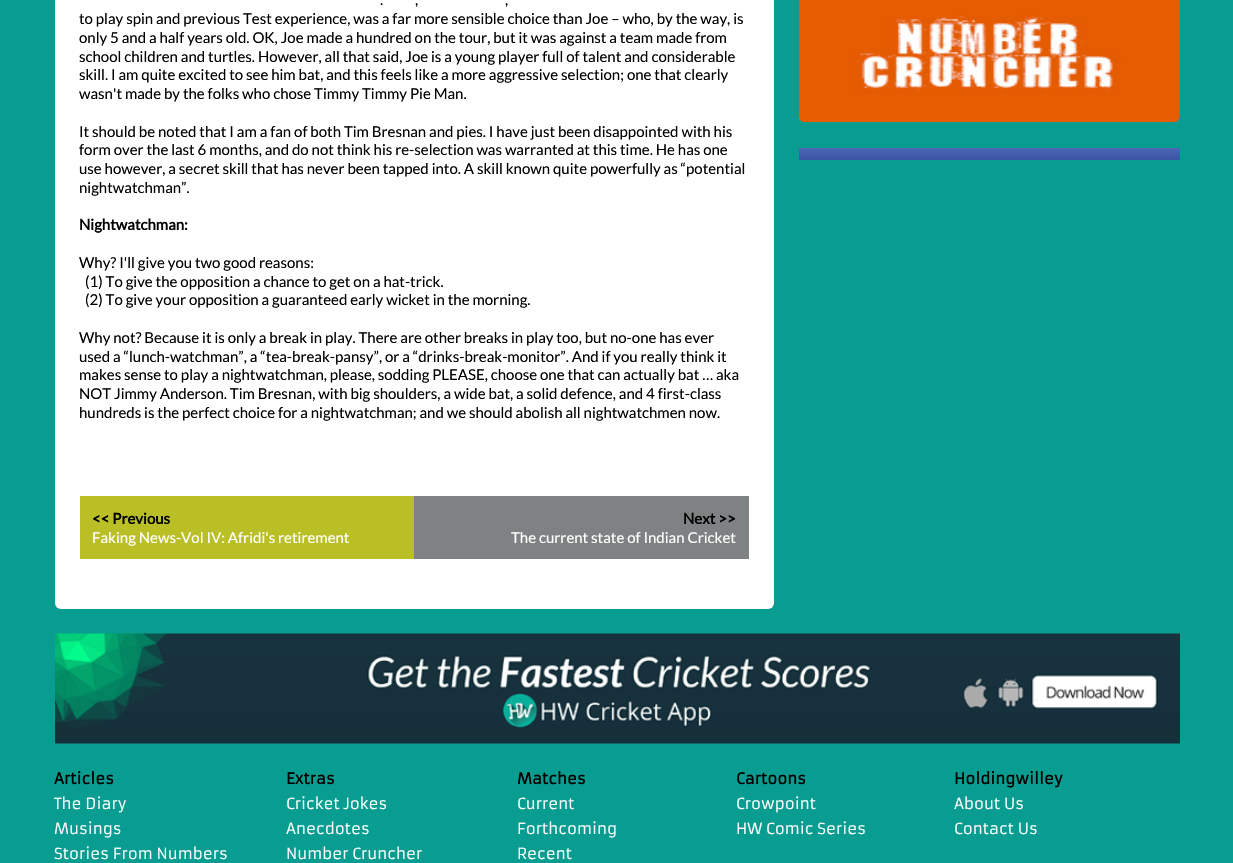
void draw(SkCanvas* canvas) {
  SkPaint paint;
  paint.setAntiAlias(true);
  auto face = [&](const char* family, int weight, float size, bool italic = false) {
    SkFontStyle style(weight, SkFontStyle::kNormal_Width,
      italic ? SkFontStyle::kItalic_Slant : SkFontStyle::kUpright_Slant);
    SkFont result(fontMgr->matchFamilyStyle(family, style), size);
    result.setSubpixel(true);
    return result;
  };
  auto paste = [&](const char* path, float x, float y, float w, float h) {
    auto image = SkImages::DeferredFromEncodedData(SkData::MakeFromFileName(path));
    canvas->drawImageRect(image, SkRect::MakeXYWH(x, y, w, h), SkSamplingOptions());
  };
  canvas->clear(0xff099d91);
  paint.setColor(0xffffffff);
  canvas->drawRoundRect(SkRect::MakeXYWH(55, -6, 719, 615), 6, 6, paint);
  paint.setColor(0xffbabf25);
  canvas->drawRect(SkRect::MakeXYWH(80, 496, 334, 63), paint);
  paint.setColor(0xff7e8283);
  canvas->drawRect(SkRect::MakeXYWH(414, 496, 335, 63), paint);
  paste("img/1.png", 798, 0, 382, 123);
  {
    const SkColor colors[] = {0xff4c69ba, 0xff3b55a0};
    const float stops[] = {0, 1};
    const SkPoint ends[] = {{989, 147}, {989, 160}};
    paint.setShader(SkGradientShader::MakeLinear(ends, colors, stops, 2, SkTileMode::kClamp));
    paint.setAlpha(255);
  }
  canvas->drawRect(SkRect::MakeXYWH(799, 148, 381, 12), paint);
  paste("img/2.png", 55, 633, 1125, 111);
  auto f0 = face("Lato", 400, 15);
  paint.setShader(nullptr);
  paint.setColor(0xff000000);
  {
    const struct { const char* s; float x, y; } items[] = {
      {".", 380, 5},
      {",", 415, 5},
      {",", 505, 5},
      {"to play spin and previous Test experience, was a far more sensible choice than Joe – who, by the way, is", 79, 24},
      {"only 5 and a half years old. OK, Joe made a hundred on the tour, but it was against a team made from", 79, 43},
      {"school children and turtles. However, all that said, Joe is a young player full of talent and considerable", 79, 62},
      {"skill. I am quite excited to see him bat, and this feels like a more aggressive selection; one that clearly", 79, 80},
      {"wasn't made by the folks who chose Timmy Timmy Pie Man.", 79, 99},
      {"It should be noted that I am a fan of both Tim Bresnan and pies. I have just been disappointed with his", 79, 137},
      {"form over the last 6 months, and do not think his re-selection was warranted at this time. He has one", 79, 155},
      {"use however, a secret skill that has never been tapped into. A skill known quite powerfully as “potential", 79, 174},
      {"nightwatchman”.", 79, 193},
    };
    for (auto [s, x, y] : items) {
      canvas->drawString(s, x, y, f0, paint);
    }
  }
  auto f1 = face("Lato", 700, 15);
  canvas->drawString("Nightwatchman:", 79, 230, f1, paint);
  {
    const struct { const char* s; float x, y; } items[] = {
      {"Why? I'll give you two good reasons:", 79, 268},
      {"(1) To give the opposition a chance to get on a hat-trick.", 85, 287},
      {"(2) To give your opposition a guaranteed early wicket in the morning.", 85, 305},
      {"Why not? Because it is only a break in play. There are other breaks in play too, but no-one has ever", 79, 343},
      {"used a “lunch-watchman”, a “tea-break-pansy”, or a “drinks-break-monitor”. And if you really think it", 79, 362},
      {"makes sense to play a nightwatchman, please, sodding PLEASE, choose one that can actually bat … aka", 79, 380},
      {"NOT Jimmy Anderson. Tim Bresnan, with big shoulders, a wide bat, a solid defence, and 4 first-class", 79, 399},
      {"hundreds is the perfect choice for a nightwatchman; and we should abolish all nightwatchmen now.", 79, 418},
    };
    for (auto [s, x, y] : items) {
      canvas->drawString(s, x, y, f0, paint);
    }
  }
  canvas->drawString("<< Previous", 92, 524, f1, paint);
  paint.setColor(0xffffffff);
  canvas->drawString("Faking News-Vol IV: Afridi's retirement", 92, 543, f0, paint);
  paint.setColor(0xff000000);
  canvas->drawString("Next >>", 683, 524, f1, paint);
  paint.setColor(0xffffffff);
  canvas->drawString("The current state of Indian Cricket", 511, 543, f0, paint);
  auto f2 = face("Armata", 700, 15);
  paint.setColor(0xff000000);
  canvas->drawString("Articles", 54, 784, f2, paint);
  auto f3 = face("Armata", 400, 15);
  paint.setColor(0xffffffff);
  {
    const struct { const char* s; float x, y; } items[] = {
      {"The Diary", 54, 809},
      {"Musings", 54, 834},
      {"Stories From Numbers", 54, 859},
    };
    for (auto [s, x, y] : items) {
      canvas->drawString(s, x, y, f3, paint);
    }
  }
  paint.setColor(0xff000000);
  canvas->drawString("Extras", 286, 784, f2, paint);
  paint.setColor(0xffffffff);
  {
    const struct { const char* s; float x, y; } items[] = {
      {"Cricket Jokes", 286, 809},
      {"Anecdotes", 286, 834},
      {"Number Cruncher", 286, 859},
    };
    for (auto [s, x, y] : items) {
      canvas->drawString(s, x, y, f3, paint);
    }
  }
  paint.setColor(0xff000000);
  canvas->drawString("Matches", 517, 784, f2, paint);
  paint.setColor(0xffffffff);
  {
    const struct { const char* s; float x, y; } items[] = {
      {"Current", 517, 809},
      {"Forthcoming", 517, 834},
      {"Recent", 517, 859},
    };
    for (auto [s, x, y] : items) {
      canvas->drawString(s, x, y, f3, paint);
    }
  }
  paint.setColor(0xff000000);
  canvas->drawString("Cartoons", 736, 784, f2, paint);
  paint.setColor(0xffffffff);
  canvas->drawString("Crowpoint", 736, 809, f3, paint);
  canvas->drawString("HW Comic Series", 736, 834, f3, paint);
  paint.setColor(0xff000000);
  canvas->drawString("Holdingwilley", 954, 784, f2, paint);
  paint.setColor(0xffffffff);
  canvas->drawString("About Us", 954, 809, f3, paint);
  canvas->drawString("Contact Us", 954, 834, f3, paint);
}
